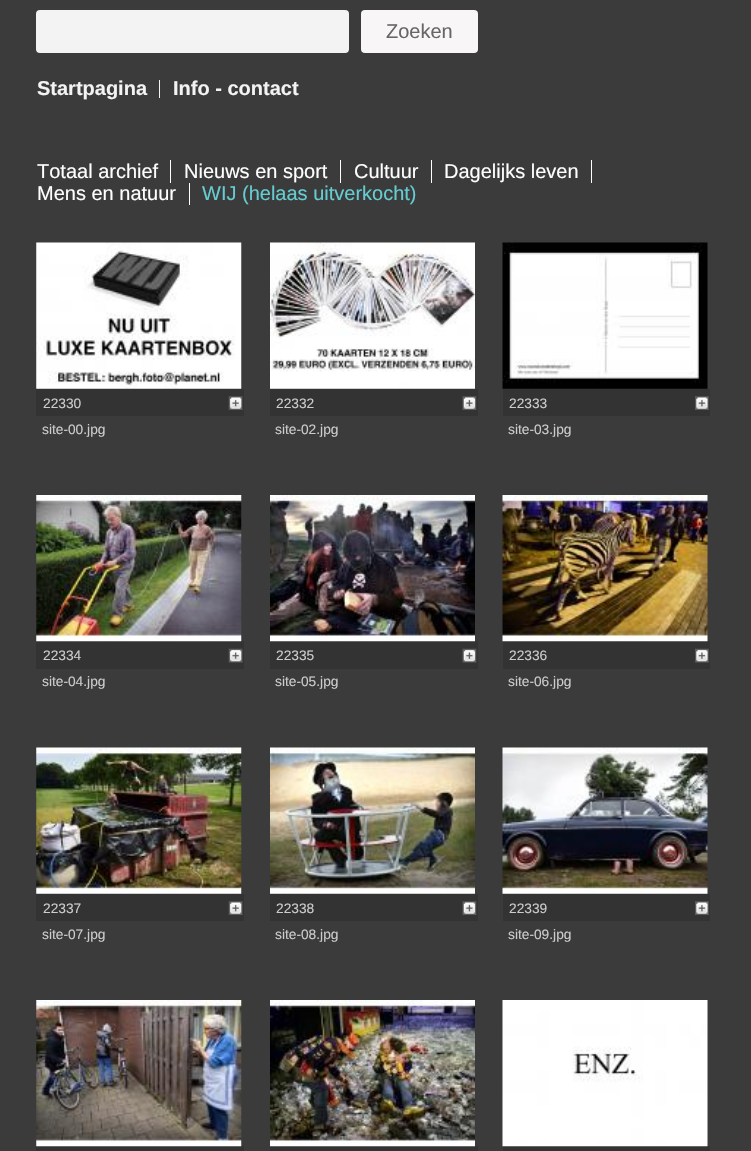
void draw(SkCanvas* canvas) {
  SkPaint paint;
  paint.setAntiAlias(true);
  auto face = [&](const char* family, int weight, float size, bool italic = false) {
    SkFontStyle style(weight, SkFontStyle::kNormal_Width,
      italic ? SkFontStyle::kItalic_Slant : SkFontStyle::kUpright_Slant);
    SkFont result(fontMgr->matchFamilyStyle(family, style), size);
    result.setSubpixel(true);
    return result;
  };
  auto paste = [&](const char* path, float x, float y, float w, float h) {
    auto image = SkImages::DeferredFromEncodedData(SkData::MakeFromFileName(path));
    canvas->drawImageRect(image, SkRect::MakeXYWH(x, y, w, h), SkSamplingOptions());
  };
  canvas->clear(0xff3c3b3b);
  paint.setColor(0xfff3f3f3);
  canvas->drawRoundRect(SkRect::MakeXYWH(36, 10, 313, 43), 4, 4, paint);
  paint.setColor(0xfff8f6f6);
  canvas->drawRoundRect(SkRect::MakeXYWH(361, 10, 117, 43), 4, 4, paint);
  {
    const struct { float x, y, w, h; SkColor color; } items[] = {
      {159, 80, 1, 18, 0xfff3f3f3},
      {170, 160, 1, 23, 0xffffffff},
      {340, 160, 1, 23, 0xffffffff},
      {431, 160, 1, 23, 0xffffffff},
      {591, 160, 1, 23, 0xffffffff},
      {189, 183, 1, 22, 0xffffffff},
    };
    for (auto [x, y, w, h, color] : items) {
      paint.setColor(color);
      canvas->drawRect(SkRect::MakeXYWH(x, y, w, h), paint);
    }
  }
  paste("img/1.png", 36, 242, 206, 147);
  paint.setColor(0xff333333);
  canvas->drawRect(SkRect::MakeXYWH(36, 389, 208, 27), paint);
  paste("img/2.png", 228, 396, 15, 14);
  paste("img/3.png", 270, 242, 205, 147);
  canvas->drawRect(SkRect::MakeXYWH(270, 389, 208, 27), paint);
  paste("img/4.png", 462, 396, 15, 14);
  paste("img/5.png", 502, 242, 206, 147);
  canvas->drawRect(SkRect::MakeXYWH(503, 389, 207, 27), paint);
  paste("img/6.png", 695, 396, 14, 14);
  canvas->drawRect(SkRect::MakeXYWH(36, 641, 208, 28), paint);
  paste("img/7.png", 36, 495, 206, 147);
  paste("img/8.png", 228, 648, 15, 15);
  canvas->drawRect(SkRect::MakeXYWH(270, 641, 208, 28), paint);
  paste("img/9.png", 270, 495, 205, 147);
  paste("img/10.png", 462, 648, 15, 15);
  canvas->drawRect(SkRect::MakeXYWH(503, 641, 207, 28), paint);
  paste("img/11.png", 502, 495, 206, 147);
  paste("img/12.png", 695, 648, 14, 15);
  paste("img/13.png", 36, 747, 206, 147);
  canvas->drawRect(SkRect::MakeXYWH(36, 894, 208, 27), paint);
  paste("img/2.png", 228, 901, 15, 14);
  paste("img/14.png", 270, 747, 205, 147);
  canvas->drawRect(SkRect::MakeXYWH(270, 894, 208, 27), paint);
  paste("img/4.png", 462, 901, 15, 14);
  paste("img/15.png", 502, 747, 206, 147);
  canvas->drawRect(SkRect::MakeXYWH(503, 894, 207, 27), paint);
  paste("img/6.png", 695, 901, 14, 14);
  canvas->drawRect(SkRect::MakeXYWH(36, 1146, 208, 5), paint);
  paste("img/16.png", 36, 1000, 206, 147);
  canvas->drawRect(SkRect::MakeXYWH(270, 1146, 208, 5), paint);
  paste("img/17.png", 270, 1000, 205, 147);
  canvas->drawRect(SkRect::MakeXYWH(503, 1146, 207, 5), paint);
  paste("img/18.png", 502, 1000, 206, 147);
  auto f0 = face("Liberation Sans", 400, 20);
  paint.setColor(0xff666666);
  canvas->drawString("Zoeken", 386, 38, f0, paint);
  auto f1 = face("Liberation Sans", 700, 20);
  paint.setColor(0xfff3f3f3);
  canvas->drawString("Startpagina", 37, 95, f1, paint);
  canvas->drawString("Info - contact", 173, 95, f1, paint);
  paint.setColor(0xffffffff);
  {
    const struct { const char* s; float x, y; } items[] = {
      {"Totaal archief", 37, 178},
      {"Nieuws en sport", 184, 178},
      {"Cultuur", 354, 178},
      {"Dagelijks leven", 444, 178},
      {"Mens en natuur", 37, 200},
    };
    for (auto [s, x, y] : items) {
      canvas->drawString(s, x, y, f0, paint);
    }
  }
  paint.setColor(0xff65cdd1);
  canvas->drawString("WIJ (helaas uitverkocht)", 202, 200, f0, paint);
  auto f2 = face("Liberation Sans", 400, 13.75f);
  paint.setColor(0xffcccccc);
  {
    const struct { const char* s; float x, y; } items[] = {
      {"22330", 43, 408},
      {"site-00.jpg", 42, 434},
      {"22332", 276, 408},
      {"site-02.jpg", 275, 434},
      {"22333", 509, 408},
      {"site-03.jpg", 508, 434},
      {"22334", 43, 660},
      {"site-04.jpg", 42, 686},
      {"22335", 276, 660},
      {"site-05.jpg", 275, 686},
      {"22336", 509, 660},
      {"site-06.jpg", 508, 686},
      {"22337", 43, 913},
      {"site-07.jpg", 42, 939},
      {"22338", 276, 913},
      {"site-08.jpg", 275, 939},
      {"22339", 509, 913},
      {"site-09.jpg", 508, 939},
    };
    for (auto [s, x, y] : items) {
      canvas->drawString(s, x, y, f2, paint);
    }
  }
}
